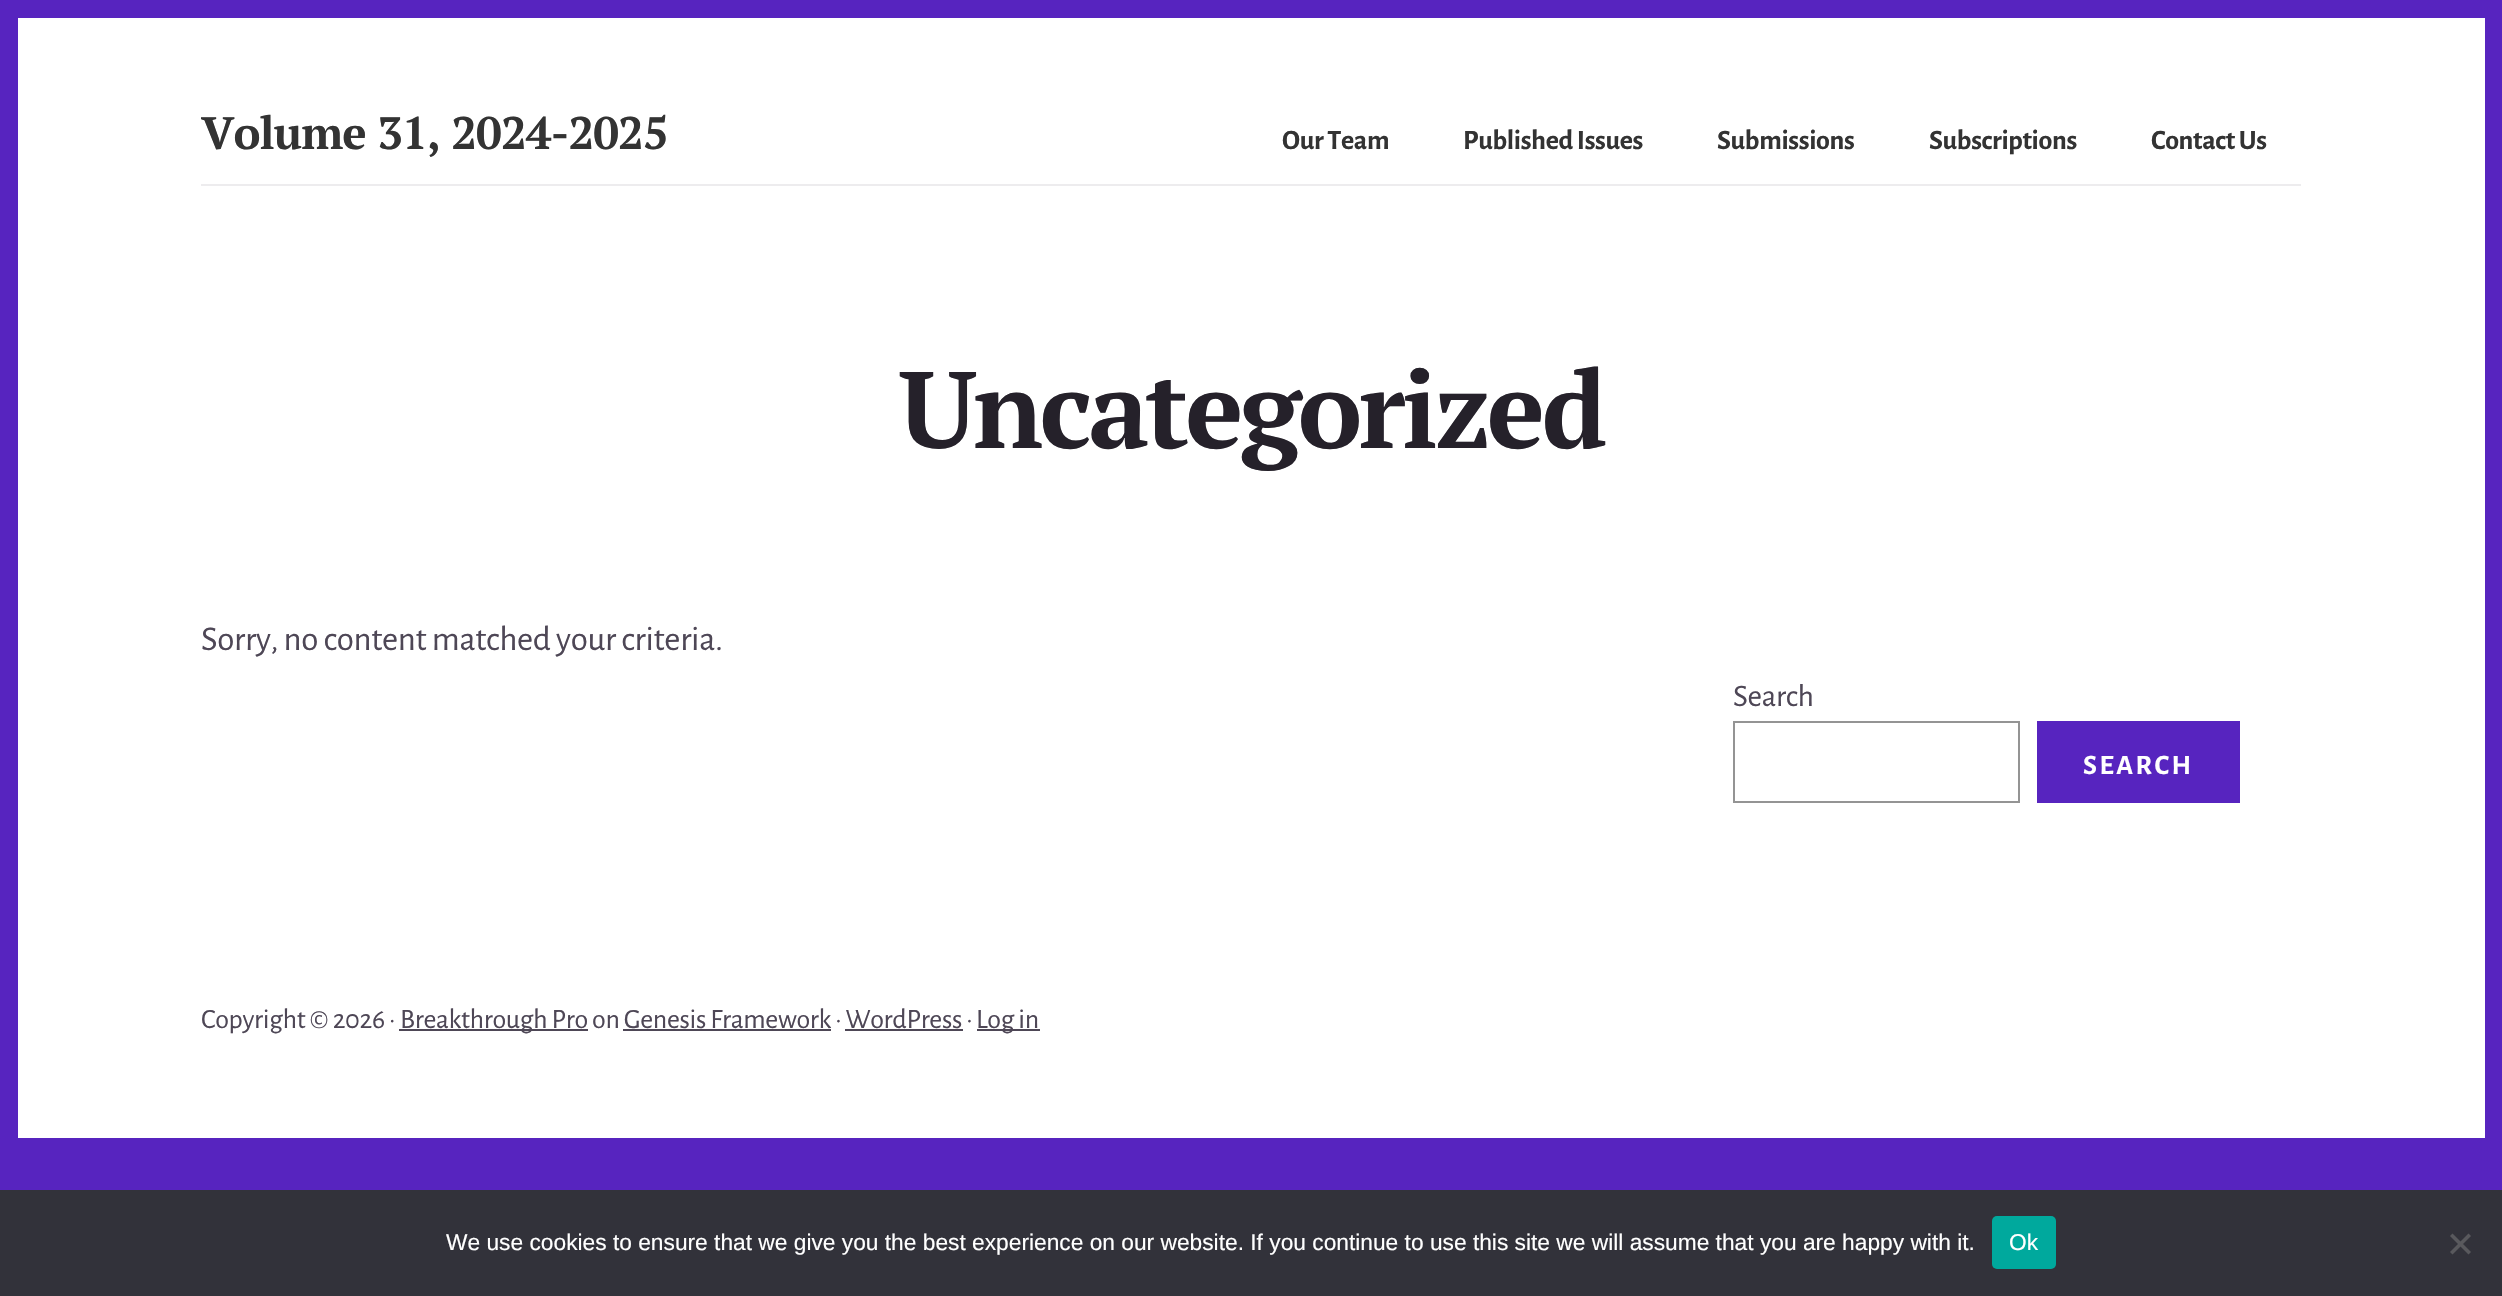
void draw(SkCanvas* canvas) {
  SkPaint paint;
  paint.setAntiAlias(true);
  auto face = [&](const char* family, int weight, float size, bool italic = false) {
    SkFontStyle style(weight, SkFontStyle::kNormal_Width,
      italic ? SkFontStyle::kItalic_Slant : SkFontStyle::kUpright_Slant);
    SkFont result(fontMgr->matchFamilyStyle(family, style), size);
    result.setSubpixel(true);
    return result;
  };
  auto writeSpaced = [&](const char* s, float x, float y, const SkFont& font, const SkPaint& ink, float letter, float word) {
    std::vector<SkGlyphID> glyphs(font.countText(s, strlen(s), SkTextEncoding::kUTF8));
    std::vector<float> xs(glyphs.size());
    font.textToGlyphs(s, strlen(s), SkTextEncoding::kUTF8, glyphs);
    font.getXPos(glyphs, xs, x);
    float extra = 0;
    for (size_t i = 0; i < glyphs.size(); i++) {
      xs[i] += extra;
      extra += letter + word * (glyphs[i] == font.unicharToGlyph(' '));
    }
    canvas->drawTextBlob(SkTextBlob::MakeFromPosHGlyphs(glyphs, xs, y, font), 0, 0, ink);
  };
  auto shape = [&](const char* data, bool evenOdd = false) {
    SkPath result = *SkParsePath::FromSVGString(data);
    if (evenOdd) result.setFillType(SkPathFillType::kEvenOdd);
    return result;
  };
  canvas->clear(0xff5724bf);
  paint.setColor(0xffffffff);
  canvas->drawRect(SkRect::MakeXYWH(18, 18, 2467, 1120), paint);
  paint.setColor(0xffedecee);
  canvas->drawRect(SkRect::MakeXYWH(201, 184, 2100, 2), paint);
  paint.setStroke(true);
  paint.setStrokeWidth(2);
  paint.setColor(0xff949494);
  canvas->drawRect(SkRect::MakeXYWH(1734, 722, 285, 80), paint);
  paint.setStroke(false);
  {
    const struct { float x, y, w, h; SkColor color; } items[] = {
      {2037, 721, 203, 82, 0xff5724bf},
      {399, 1029, 189, 2, 0xff4e4756},
      {977, 1029, 63, 2, 0xff4e4756},
      {623, 1029, 208, 2, 0xff4e4756},
      {845, 1029, 118, 2, 0xff4e4756},
      {0, 1190, 2502, 106, 0xff32323a},
    };
    for (auto [x, y, w, h, color] : items) {
      paint.setColor(color);
      canvas->drawRect(SkRect::MakeXYWH(x, y, w, h), paint);
    }
  }
  paint.setColor(0xff00a99d);
  canvas->drawRoundRect(SkRect::MakeXYWH(1992, 1216, 64, 53), 5, 5, paint);
  paint.setColor(0xff59595d);
  canvas->drawPath(shape("M2468.5 1233.5L2471 1236L2452.5 1254.5L2450 1252Z"), paint);
  canvas->drawPath(shape("M2450 1236L2452.5 1233.5L2471 1252L2468.5 1254.5Z"), paint);
  auto f0 = face("PT Serif", 700, 45.5f);
  paint.setColor(0xff333333);
  writeSpaced("Volume 31, 2024-2025", 201, 149, f0, paint, -0.9f, 0);
  auto f1 = face("Alegreya Sans", 700, 28);
  {
    const struct { const char* s; float x, y; } items[] = {
      {"Our Team", 1282, 149},
      {"Published Issues", 1463, 149},
      {"Submissions", 1717, 149},
      {"Subscriptions", 1929, 149},
      {"Contact Us", 2151, 149},
    };
    for (auto [s, x, y] : items) {
      writeSpaced(s, x, y, f1, paint, -0.35f, 0);
    }
  }
  auto f2 = face("PT Serif", 700, 108.5f);
  paint.setColor(0xff25212a);
  writeSpaced("Uncategorized", 899, 448, f2, paint, -3.5f, 0);
  auto f3 = face("Alegreya Sans", 400, 35);
  paint.setColor(0xff4e4756);
  writeSpaced("Sorry, no content matched your criteria.", 201, 650, f3, paint, -0.35f, 0);
  auto f4 = face("Alegreya Sans", 400, 31.5f);
  writeSpaced("Search", 1733, 706, f4, paint, -0.35f, 0);
  paint.setColor(0xffffffff);
  writeSpaced("SEARCH", 2083, 774, f1, paint, 2.5f, 0);
  auto f5 = face("Alegreya Sans", 400, 28);
  paint.setColor(0xff4e4756);
  {
    const struct { const char* s; float x, y; } items[] = {
      {"Copyright © 2026 ·", 201, 1028},
      {"Breakthrough Pro on Genesis Framework · WordPress ·", 400, 1028},
      {"Log in", 976, 1028},
    };
    for (auto [s, x, y] : items) {
      writeSpaced(s, x, y, f5, paint, -0.35f, 0);
    }
  }
  auto f6 = face("Liberation Sans", 400, 22.75f);
  paint.setColor(0xffffffff);
  canvas->drawString("We use cookies to ensure that we give you the best experience on our website. If you continue to use this site we will assume that you are happy with it.", 446, 1250, f6, paint);
  canvas->drawString("Ok", 2009, 1250, f6, paint);
}
